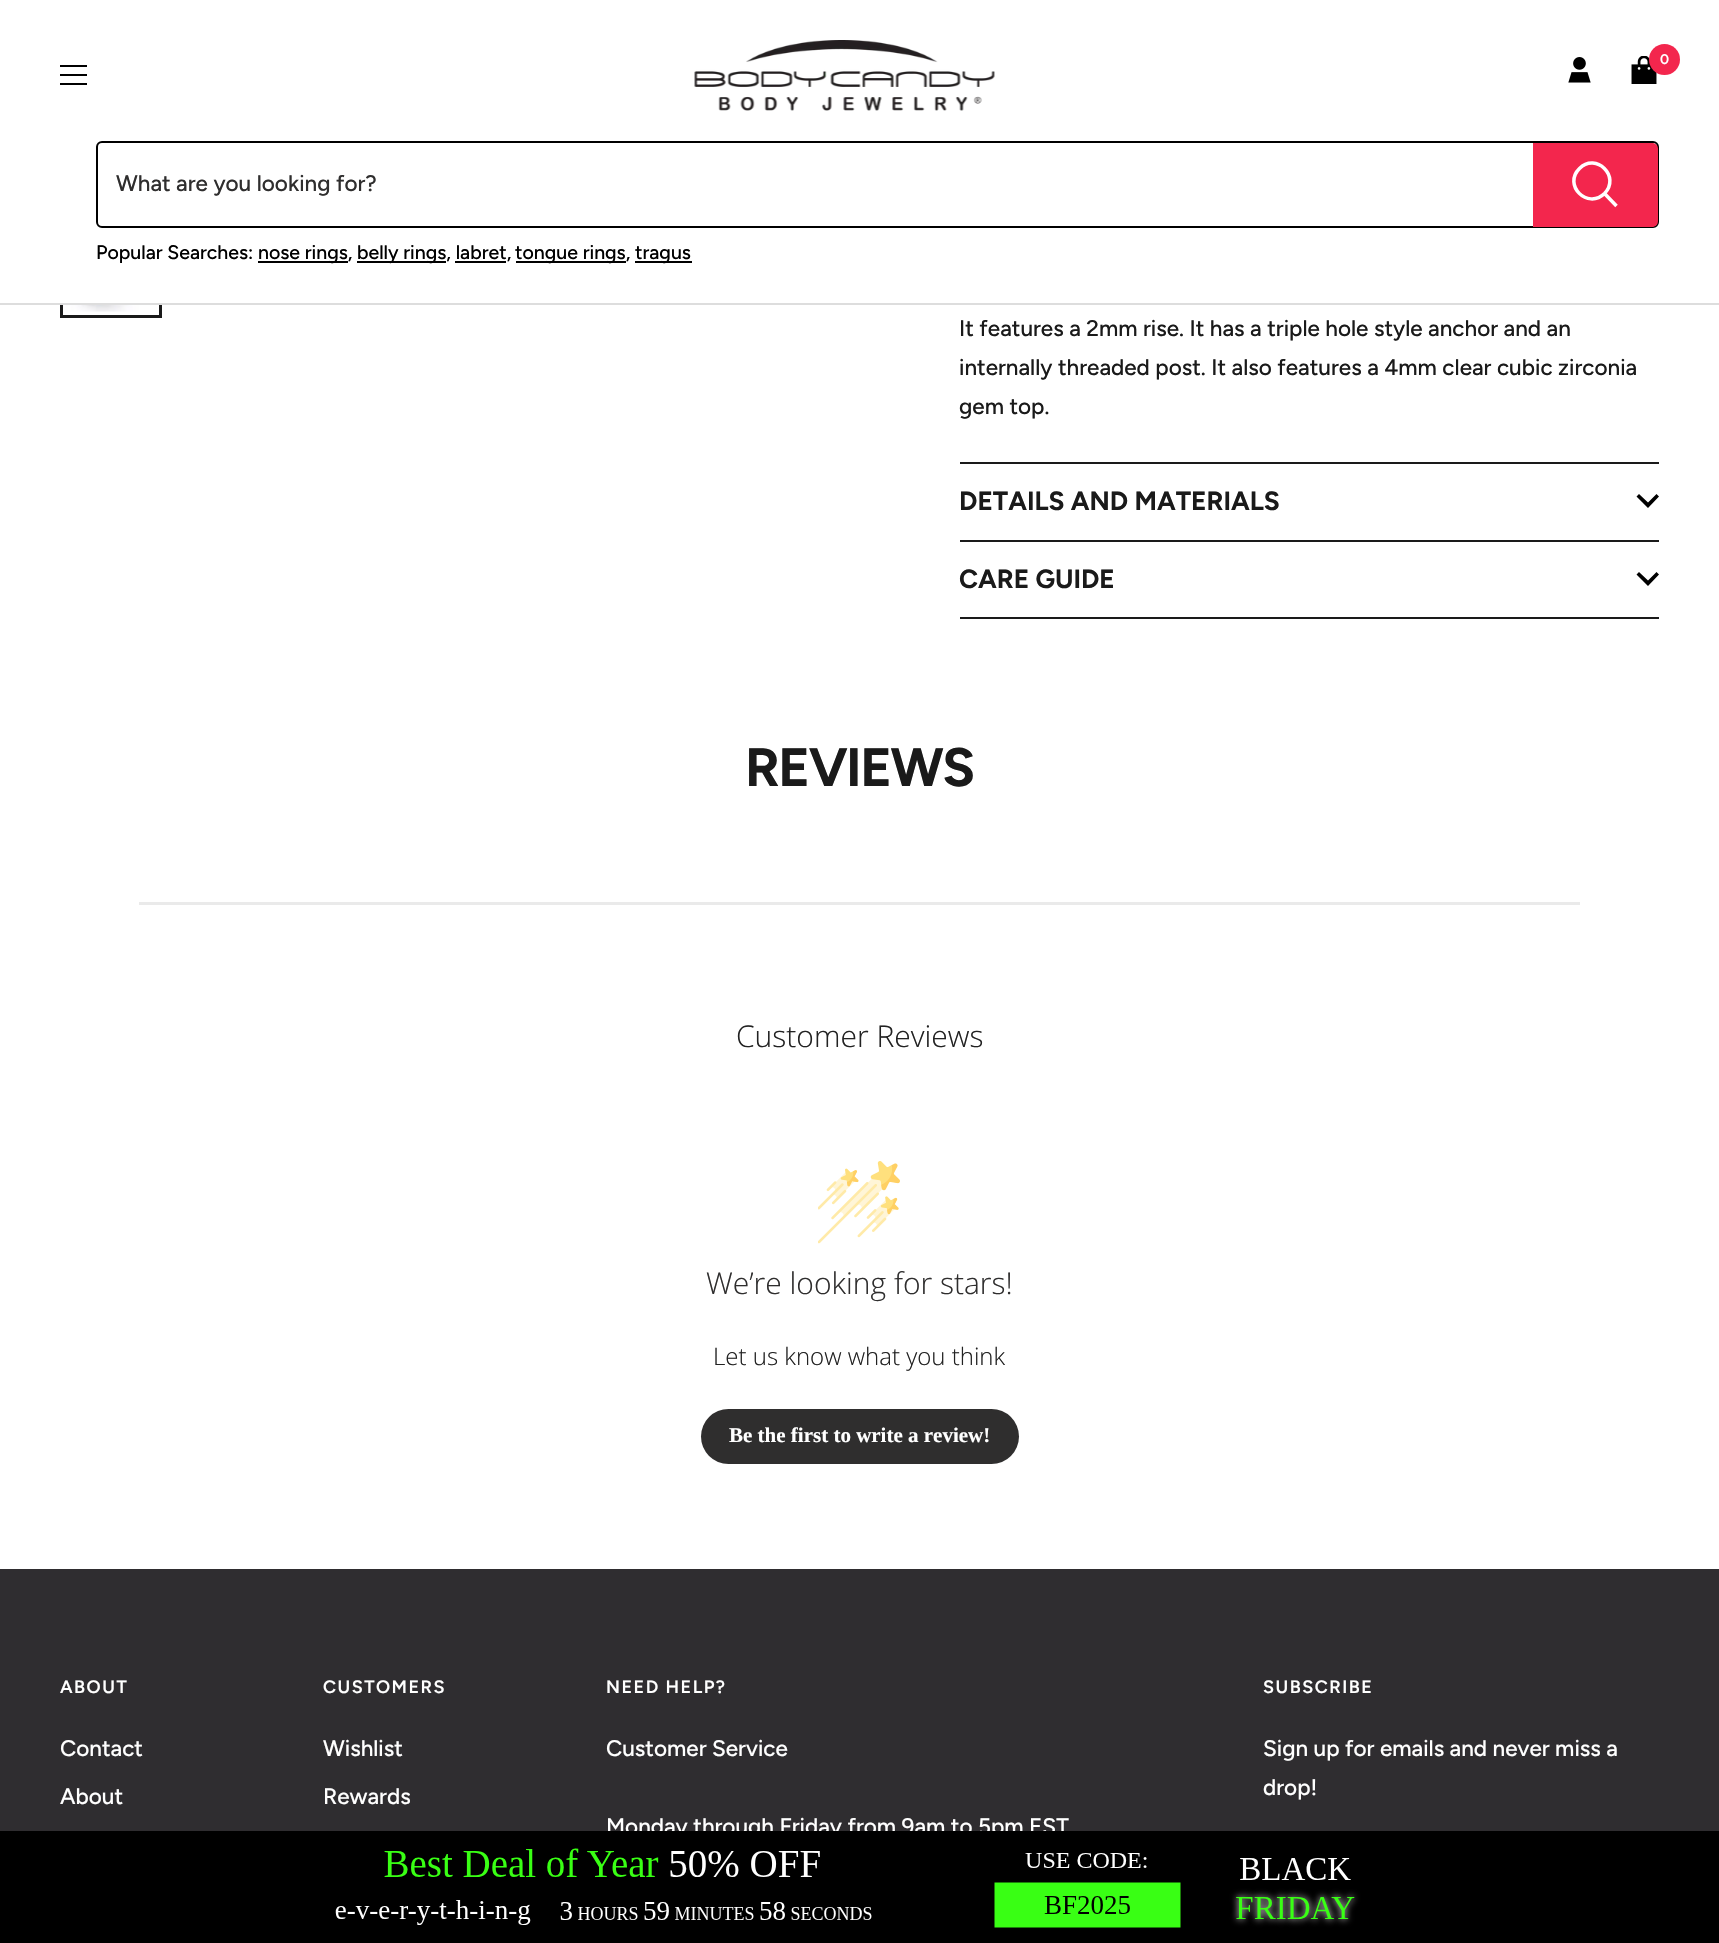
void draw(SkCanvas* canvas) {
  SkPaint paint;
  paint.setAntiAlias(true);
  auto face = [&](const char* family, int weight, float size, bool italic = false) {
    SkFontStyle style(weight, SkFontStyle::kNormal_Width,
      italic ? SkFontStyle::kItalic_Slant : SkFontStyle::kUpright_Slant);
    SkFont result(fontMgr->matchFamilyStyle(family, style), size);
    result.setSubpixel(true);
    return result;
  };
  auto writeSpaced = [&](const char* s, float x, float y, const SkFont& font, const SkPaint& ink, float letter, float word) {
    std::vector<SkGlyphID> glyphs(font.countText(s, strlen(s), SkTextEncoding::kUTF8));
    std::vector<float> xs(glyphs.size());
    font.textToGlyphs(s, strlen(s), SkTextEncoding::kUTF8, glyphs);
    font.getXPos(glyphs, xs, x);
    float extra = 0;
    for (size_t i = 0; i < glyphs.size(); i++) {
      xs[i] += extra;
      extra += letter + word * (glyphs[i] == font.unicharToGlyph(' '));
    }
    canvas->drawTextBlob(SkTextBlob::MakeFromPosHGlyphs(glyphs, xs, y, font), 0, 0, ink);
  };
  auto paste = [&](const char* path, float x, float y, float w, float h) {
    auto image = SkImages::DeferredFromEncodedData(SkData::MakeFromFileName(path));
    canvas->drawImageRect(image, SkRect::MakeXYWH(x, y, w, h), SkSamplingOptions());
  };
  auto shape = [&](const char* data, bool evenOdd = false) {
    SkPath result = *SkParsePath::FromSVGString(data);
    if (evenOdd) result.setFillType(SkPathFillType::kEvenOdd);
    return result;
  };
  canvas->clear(0xffffffff);
  paste("img/4.png", 66, 305, 89, 7);
  paint.setStroke(true);
  paint.setStrokeWidth(3);
  paint.setColor(0xff1a1a1a);
  canvas->drawRect(SkRect::MakeXYWH(61.5f, 217.5f, 99, 99), paint);
  paint.setStroke(false);
  paint.setColor(0xffdddddd);
  canvas->drawRect(SkRect::MakeXYWH(0, 303, 1719, 2), paint);
  paint.setColor(0xffffffff);
  canvas->drawRect(SkRect::MakeXYWH(60, 216, 102, 87), paint);
  paste("img/1.png", 694, 40, 301, 71);
  paste("img/2.png", 1568, 57, 23, 26);
  paste("img/3.png", 1631, 56, 26, 28);
  paint.setColor(0xfff3264d);
  canvas->drawCircle(1664.5f, 59.5f, 15.5f, paint);
  paint.setStroke(true);
  paint.setStrokeWidth(2);
  paint.setColor(0xff000000);
  canvas->drawPath(shape("M60 66H87M60 84H87ZM60 75H87Z"), paint);
  canvas->drawRoundRect(SkRect::MakeXYWH(97, 142, 1561, 85), 5, 5, paint);
  paint.setStroke(false);
  paint.setColor(0xfff3264d);
  canvas->drawPath(shape("M1533 143H1652C1655.5 143 1658 145.5 1658 149V221C1658 224.5 1655.5 227 1652 227H1533Z"), paint);
  paint.setStroke(true);
  paint.setStrokeWidth(3.5f);
  paint.setColor(0xffffffff);
  canvas->drawPath(shape("M1604.5 193.5C1621 176.5 1596 152 1579.5 168.5C1562.5 185 1587.5 210 1604.5 193.5ZM1604.5 193.5L1616.5 206"), paint);
  paint.setStroke(false);
  {
    const struct { float x, y, w, h; SkColor color; } items[] = {
      {258, 261, 90, 2, 0xff000000},
      {357, 261, 89, 2, 0xff000000},
      {516, 261, 110, 2, 0xff000000},
      {635, 261, 57, 2, 0xff000000},
      {455, 261, 51, 2, 0xff000000},
      {960, 462, 699, 2, 0xff1a1a1a},
      {960, 540, 699, 2, 0xff1a1a1a},
    };
    for (auto [x, y, w, h, color] : items) {
      paint.setColor(color);
      canvas->drawRect(SkRect::MakeXYWH(x, y, w, h), paint);
    }
  }
  paint.setColor(0xff000000);
  canvas->drawPath(shape("M1636.5 496.5L1639 494L1648 502.5L1656.5 494L1659 496.5L1648 508Z"), paint);
  paint.setColor(0xff1a1a1a);
  canvas->drawRect(SkRect::MakeXYWH(960, 617, 699, 2), paint);
  paint.setColor(0xff000000);
  canvas->drawPath(shape("M1636.5 574.5L1639 572L1648 580.5L1656.5 572L1659 574.5L1648 586Z"), paint);
  paint.setColor(0xffeaeaea);
  canvas->drawRect(SkRect::MakeXYWH(139, 902, 1441, 3), paint);
  paste("img/5.png", 818, 1161, 82, 83);
  paint.setColor(0xff2f2e2e);
  canvas->drawRoundRect(SkRect::MakeXYWH(701, 1409, 318, 55), 27.5f, 27.5f, paint);
  paint.setColor(0xff2f2d30);
  canvas->drawRect(SkRect::MakeXYWH(0, 1569, 1719, 262), paint);
  auto f0 = face("Figtree", 600, 14);
  paint.setColor(0xffffffff);
  canvas->drawString("0", 1660, 64, f0, paint);
  auto f1 = face("Figtree", 500, 22.5f);
  paint.setColor(0xff2f2e2e);
  canvas->drawString("What are you looking for?", 116, 191, f1, paint);
  auto f2 = face("Figtree", 500, 19.5f);
  paint.setColor(0xff000000);
  {
    const struct { const char* s; float x, y; } items[] = {
      {"Popular Searches:", 96, 259},
      {"nose rings,", 258, 259},
      {"belly rings, labret,", 357, 259},
      {"tongue rings,", 515, 259},
      {"tragus", 635, 259},
    };
    for (auto [s, x, y] : items) {
      canvas->drawString(s, x, y, f2, paint);
    }
  }
  paint.setColor(0xff1a1a1a);
  {
    const struct { const char* s; float x, y; } items[] = {
      {"It features a 2mm rise. It has a triple hole style anchor and an", 959, 336},
      {"internally threaded post. It also features a 4mm clear cubic zirconia", 959, 375},
      {"gem top.", 959, 414},
    };
    for (auto [s, x, y] : items) {
      canvas->drawString(s, x, y, f1, paint);
    }
  }
  auto f3 = face("Figtree", 700, 26.25f);
  canvas->drawString("DETAILS AND MATERIALS", 959, 510, f3, paint);
  canvas->drawString("CARE GUIDE", 959, 588, f3, paint);
  auto f4 = face("Figtree", 700, 54);
  writeSpaced("REVIEWS", 745, 786, f4, paint, -1.5f, 0);
  auto f5 = face("Open Sans", 300, 30);
  paint.setColor(0xff222222);
  canvas->drawString("Customer Reviews", 736, 1047, f5, paint);
  paint.setColor(0xff2f2e2e);
  canvas->drawString("We’re looking for stars!", 706, 1294, f5, paint);
  auto f6 = face("Open Sans", 300, 24);
  paint.setColor(0xff222222);
  canvas->drawString("Let us know what you think", 713, 1365, f6, paint);
  auto f7 = face("Liberation Serif", 700, 21);
  paint.setColor(0xffffffff);
  canvas->drawString("Be the first to write a review!", 729, 1442, f7, paint);
  auto f8 = face("Figtree", 600, 18);
  writeSpaced("ABOUT", 60, 1693, f8, paint, 1.5f, 0);
  canvas->drawString("Contact", 60, 1756, f1, paint);
  canvas->drawString("About", 60, 1804, f1, paint);
  writeSpaced("CUSTOMERS", 323, 1693, f8, paint, 1.5f, 0);
  canvas->drawString("Wishlist", 323, 1756, f1, paint);
  canvas->drawString("Rewards", 323, 1804, f1, paint);
  writeSpaced("NEED HELP?", 606, 1693, f8, paint, 1.5f, 0);
  canvas->drawString("Customer Service", 606, 1756, f1, paint);
  canvas->drawString("Monday through Friday from 9am to 5pm EST", 606, 1834, f1, paint);
  writeSpaced("SUBSCRIBE", 1263, 1693, f8, paint, 1.5f, 0);
  canvas->drawString("Sign up for emails and never miss a", 1263, 1756, f1, paint);
  canvas->drawString("drop!", 1263, 1795, f1, paint);
  paste("img/6.png", 0, 1831, 1719, 112);
}
